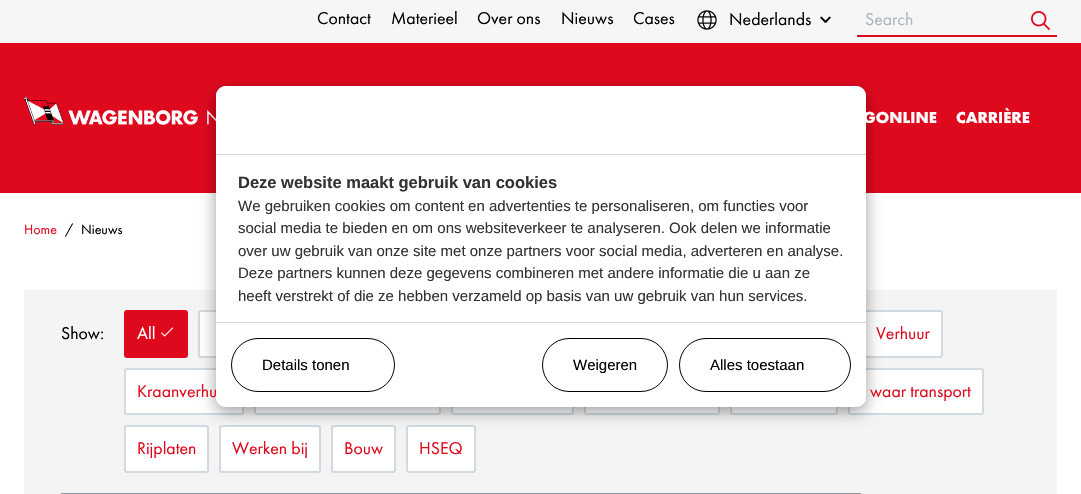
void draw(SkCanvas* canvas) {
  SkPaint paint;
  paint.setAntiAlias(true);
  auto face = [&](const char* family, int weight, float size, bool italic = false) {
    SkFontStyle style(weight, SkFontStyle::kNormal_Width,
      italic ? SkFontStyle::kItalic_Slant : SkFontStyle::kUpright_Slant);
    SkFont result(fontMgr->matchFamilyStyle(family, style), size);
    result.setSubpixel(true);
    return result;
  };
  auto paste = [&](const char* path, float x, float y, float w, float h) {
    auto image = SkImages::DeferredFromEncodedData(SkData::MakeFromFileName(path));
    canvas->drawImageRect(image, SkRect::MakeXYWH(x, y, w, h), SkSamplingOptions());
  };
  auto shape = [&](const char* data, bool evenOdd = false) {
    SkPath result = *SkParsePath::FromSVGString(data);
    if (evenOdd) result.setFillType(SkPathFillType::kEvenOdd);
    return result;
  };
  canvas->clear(0xffffffff);
  paint.setColor(0xfff6f6f6);
  canvas->drawRect(SkRect::MakeXYWH(0, 0, 1081, 43), paint);
  paste("img/1.png", 697, 10, 20, 20);
  paint.setColor(0xff000000);
  canvas->drawPath(shape("M831 17.5L826 23L824.5 21.5L829.5 16.5Z"), paint);
  canvas->drawPath(shape("M826.5 21.5L825 23L820 17.5L821.5 16.5Z"), paint);
  paint.setColor(0xffdf091e);
  canvas->drawRect(SkRect::MakeXYWH(857, 35, 200, 2), paint);
  paste("img/2.png", 1031, 11, 19, 19);
  canvas->drawRect(SkRect::MakeXYWH(0, 43, 1081, 150), paint);
  paste("img/3.png", 24, 97, 192, 28);
  paint.setColor(0xfff4f4f4);
  canvas->drawRect(SkRect::MakeXYWH(24, 290, 1033, 204), paint);
  paint.setColor(0xffdf091e);
  canvas->drawRoundRect(SkRect::MakeXYWH(125, 311, 62, 46), 2, 2, paint);
  paint.setStroke(true);
  paint.setStrokeWidth(2);
  canvas->drawRoundRect(SkRect::MakeXYWH(125, 311, 62, 46), 2, 2, paint);
  paste("img/4.png", 161, 327, 13, 10);
  paint.setStroke(false);
  paint.setColor(0xffffffff);
  canvas->drawRoundRect(SkRect::MakeXYWH(199, 311, 181, 46), 2, 2, paint);
  paint.setStroke(true);
  paint.setColor(0xffd0dae0);
  canvas->drawRoundRect(SkRect::MakeXYWH(199, 311, 181, 46), 2, 2, paint);
  paint.setStroke(false);
  paint.setColor(0xffffffff);
  canvas->drawRoundRect(SkRect::MakeXYWH(864, 311, 78, 46), 2, 2, paint);
  paint.setStroke(true);
  paint.setColor(0xffd0dae0);
  canvas->drawRoundRect(SkRect::MakeXYWH(864, 311, 78, 46), 2, 2, paint);
  paint.setStroke(false);
  paint.setColor(0xffffffff);
  canvas->drawRoundRect(SkRect::MakeXYWH(125, 369, 118, 45), 2, 2, paint);
  paint.setStroke(true);
  paint.setColor(0xffd0dae0);
  canvas->drawRoundRect(SkRect::MakeXYWH(125, 369, 118, 45), 2, 2, paint);
  paint.setStroke(false);
  paint.setColor(0xffffffff);
  canvas->drawRoundRect(SkRect::MakeXYWH(255, 369, 185, 45), 2, 2, paint);
  paint.setStroke(true);
  paint.setColor(0xffd0dae0);
  canvas->drawRoundRect(SkRect::MakeXYWH(255, 369, 185, 45), 2, 2, paint);
  paint.setStroke(false);
  paint.setColor(0xffffffff);
  canvas->drawRoundRect(SkRect::MakeXYWH(452, 369, 121, 45), 2, 2, paint);
  paint.setStroke(true);
  paint.setColor(0xffd0dae0);
  canvas->drawRoundRect(SkRect::MakeXYWH(452, 369, 121, 45), 2, 2, paint);
  paint.setStroke(false);
  paint.setColor(0xffffffff);
  canvas->drawRoundRect(SkRect::MakeXYWH(585, 369, 134, 45), 2, 2, paint);
  paint.setStroke(true);
  paint.setColor(0xffd0dae0);
  canvas->drawRoundRect(SkRect::MakeXYWH(585, 369, 134, 45), 2, 2, paint);
  paint.setStroke(false);
  paint.setColor(0xffffffff);
  canvas->drawRoundRect(SkRect::MakeXYWH(731, 369, 106, 45), 2, 2, paint);
  paint.setStroke(true);
  paint.setColor(0xffd0dae0);
  canvas->drawRoundRect(SkRect::MakeXYWH(731, 369, 106, 45), 2, 2, paint);
  paint.setStroke(false);
  paint.setColor(0xffffffff);
  canvas->drawRoundRect(SkRect::MakeXYWH(849, 369, 134, 45), 2, 2, paint);
  paint.setStroke(true);
  paint.setColor(0xffd0dae0);
  canvas->drawRoundRect(SkRect::MakeXYWH(849, 369, 134, 45), 2, 2, paint);
  paint.setStroke(false);
  paint.setColor(0xffffffff);
  canvas->drawRoundRect(SkRect::MakeXYWH(125, 426, 83, 46), 2, 2, paint);
  paint.setStroke(true);
  paint.setColor(0xffd0dae0);
  canvas->drawRoundRect(SkRect::MakeXYWH(125, 426, 83, 46), 2, 2, paint);
  paint.setStroke(false);
  paint.setColor(0xffffffff);
  canvas->drawRoundRect(SkRect::MakeXYWH(220, 426, 100, 46), 2, 2, paint);
  paint.setStroke(true);
  paint.setColor(0xffd0dae0);
  canvas->drawRoundRect(SkRect::MakeXYWH(220, 426, 100, 46), 2, 2, paint);
  paint.setStroke(false);
  paint.setColor(0xffffffff);
  canvas->drawRoundRect(SkRect::MakeXYWH(332, 426, 63, 46), 2, 2, paint);
  paint.setStroke(true);
  paint.setColor(0xffd0dae0);
  canvas->drawRoundRect(SkRect::MakeXYWH(332, 426, 63, 46), 2, 2, paint);
  paint.setStroke(false);
  paint.setColor(0xffffffff);
  canvas->drawRoundRect(SkRect::MakeXYWH(407, 426, 68, 46), 2, 2, paint);
  paint.setStroke(true);
  paint.setColor(0xffd0dae0);
  canvas->drawRoundRect(SkRect::MakeXYWH(407, 426, 68, 46), 2, 2, paint);
  paint.setColor(0xff8e989e);
  canvas->drawRect(SkRect::MakeXYWH(62, 494, 798, 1), paint);
  paint.setStroke(false);
  paint.setColor(0x30000000);
  paint.setMaskFilter(SkMaskFilter::MakeBlur(kNormal_SkBlurStyle, 7.5f));
  canvas->drawRoundRect(SkRect::MakeXYWH(216, 91, 650, 321), 10, 10, paint);
  paint.setMaskFilter(nullptr);
  paint.setColor(0x33000000);
  paint.setMaskFilter(SkMaskFilter::MakeBlur(kNormal_SkBlurStyle, 7.5f));
  canvas->drawRoundRect(SkRect::MakeXYWH(216, 91, 650, 321), 10, 10, paint);
  paint.setMaskFilter(nullptr);
  auto f0 = face("Futura PT", 400, 17.75f);
  paint.setColor(0xff000000);
  {
    const struct { const char* s; float x, y; } items[] = {
      {"Contact", 317, 24},
      {"Materieel", 391, 24},
      {"Over ons", 477, 24},
      {"Nieuws", 561, 24},
      {"Cases", 633, 24},
      {"Nederlands", 729, 25},
    };
    for (auto [s, x, y] : items) {
      canvas->drawString(s, x, y, f0, paint);
    }
  }
  paint.setColor(0xffadb6bd);
  canvas->drawString("Search", 865, 25, f0, paint);
  auto f1 = face("Futura PT", 700, 16.5f);
  paint.setColor(0xffffffff);
  canvas->drawString("GONLINE", 863, 123, f1, paint);
  canvas->drawString("CARRIÈRE", 956, 123, f1, paint);
  auto f2 = face("Futura PT", 400, 14);
  paint.setColor(0xffdf091e);
  canvas->drawString("Home", 24, 234, f2, paint);
  paint.setColor(0xff000000);
  canvas->drawString("/", 65, 234, f2, paint);
  canvas->drawString("Nieuws", 81, 234, f2, paint);
  canvas->drawString("Show:", 61, 339, f0, paint);
  paint.setColor(0xffffffff);
  canvas->drawString("All", 137, 339, f0, paint);
  paint.setColor(0xffdf091e);
  {
    const struct { const char* s; float x, y; } items[] = {
      {"Verhuur", 876, 339},
      {"Kraanverhu", 137, 397},
      {"waar transport", 870, 397},
      {"Rijplaten", 137, 454},
      {"Werken bij", 232, 454},
      {"Bouw", 344, 454},
      {"HSEQ", 419, 454},
    };
    for (auto [s, x, y] : items) {
      canvas->drawString(s, x, y, f0, paint);
    }
  }
  paint.setColor(0xffffffff);
  canvas->drawRoundRect(SkRect::MakeXYWH(216, 86, 650, 321), 10, 10, paint);
  canvas->drawPath(shape("M226 86H856C861.5 86 866 90.5 866 96V155H216V96C216 90.5 220.5 86 226 86Z"), paint);
  paint.setColor(0xffd6d6d6);
  canvas->drawRect(SkRect::MakeXYWH(216, 154, 650, 1), paint);
  auto f3 = face("Liberation Sans", 700, 16.5f);
  paint.setColor(0xff333333);
  canvas->drawString("Deze website maakt gebruik van cookies", 238, 188, f3, paint);
  auto f4 = face("Liberation Sans", 400, 15);
  {
    const struct { const char* s; float x, y; } items[] = {
      {"We gebruiken cookies om content en advertenties te personaliseren, om functies voor", 238, 211},
      {"social media te bieden en om ons websiteverkeer te analyseren. Ook delen we informatie", 238, 233},
      {"over uw gebruik van onze site met onze partners voor social media, adverteren en analyse.", 238, 256},
      {"Deze partners kunnen deze gegevens combineren met andere informatie die u aan ze", 238, 278},
      {"heeft verstrekt of die ze hebben verzameld op basis van uw gebruik van hun services.", 238, 301},
    };
    for (auto [s, x, y] : items) {
      canvas->drawString(s, x, y, f4, paint);
    }
  }
  paint.setColor(0xffffffff);
  canvas->drawPath(shape("M216 322H866V397C866 402.5 861.5 407 856 407H226C220.5 407 216 402.5 216 397Z"), paint);
  paint.setColor(0xffd6d6d6);
  canvas->drawRect(SkRect::MakeXYWH(216, 322, 650, 1), paint);
  paint.setStroke(true);
  paint.setStrokeWidth(1);
  paint.setColor(0xff000000);
  canvas->drawRoundRect(SkRect::MakeXYWH(231.5f, 338.5f, 163, 53), 26.5f, 26.5f, paint);
  paint.setStroke(false);
  canvas->drawString("Details tonen", 262, 370, f4, paint);
  paint.setStroke(true);
  canvas->drawRoundRect(SkRect::MakeXYWH(542.5f, 338.5f, 125, 53), 26.5f, 26.5f, paint);
  paint.setStroke(false);
  canvas->drawString("Weigeren", 573, 370, f4, paint);
  paint.setStroke(true);
  canvas->drawRoundRect(SkRect::MakeXYWH(679.5f, 338.5f, 171, 53), 26.5f, 26.5f, paint);
  paint.setStroke(false);
  canvas->drawString("Alles toestaan", 710, 370, f4, paint);
}
